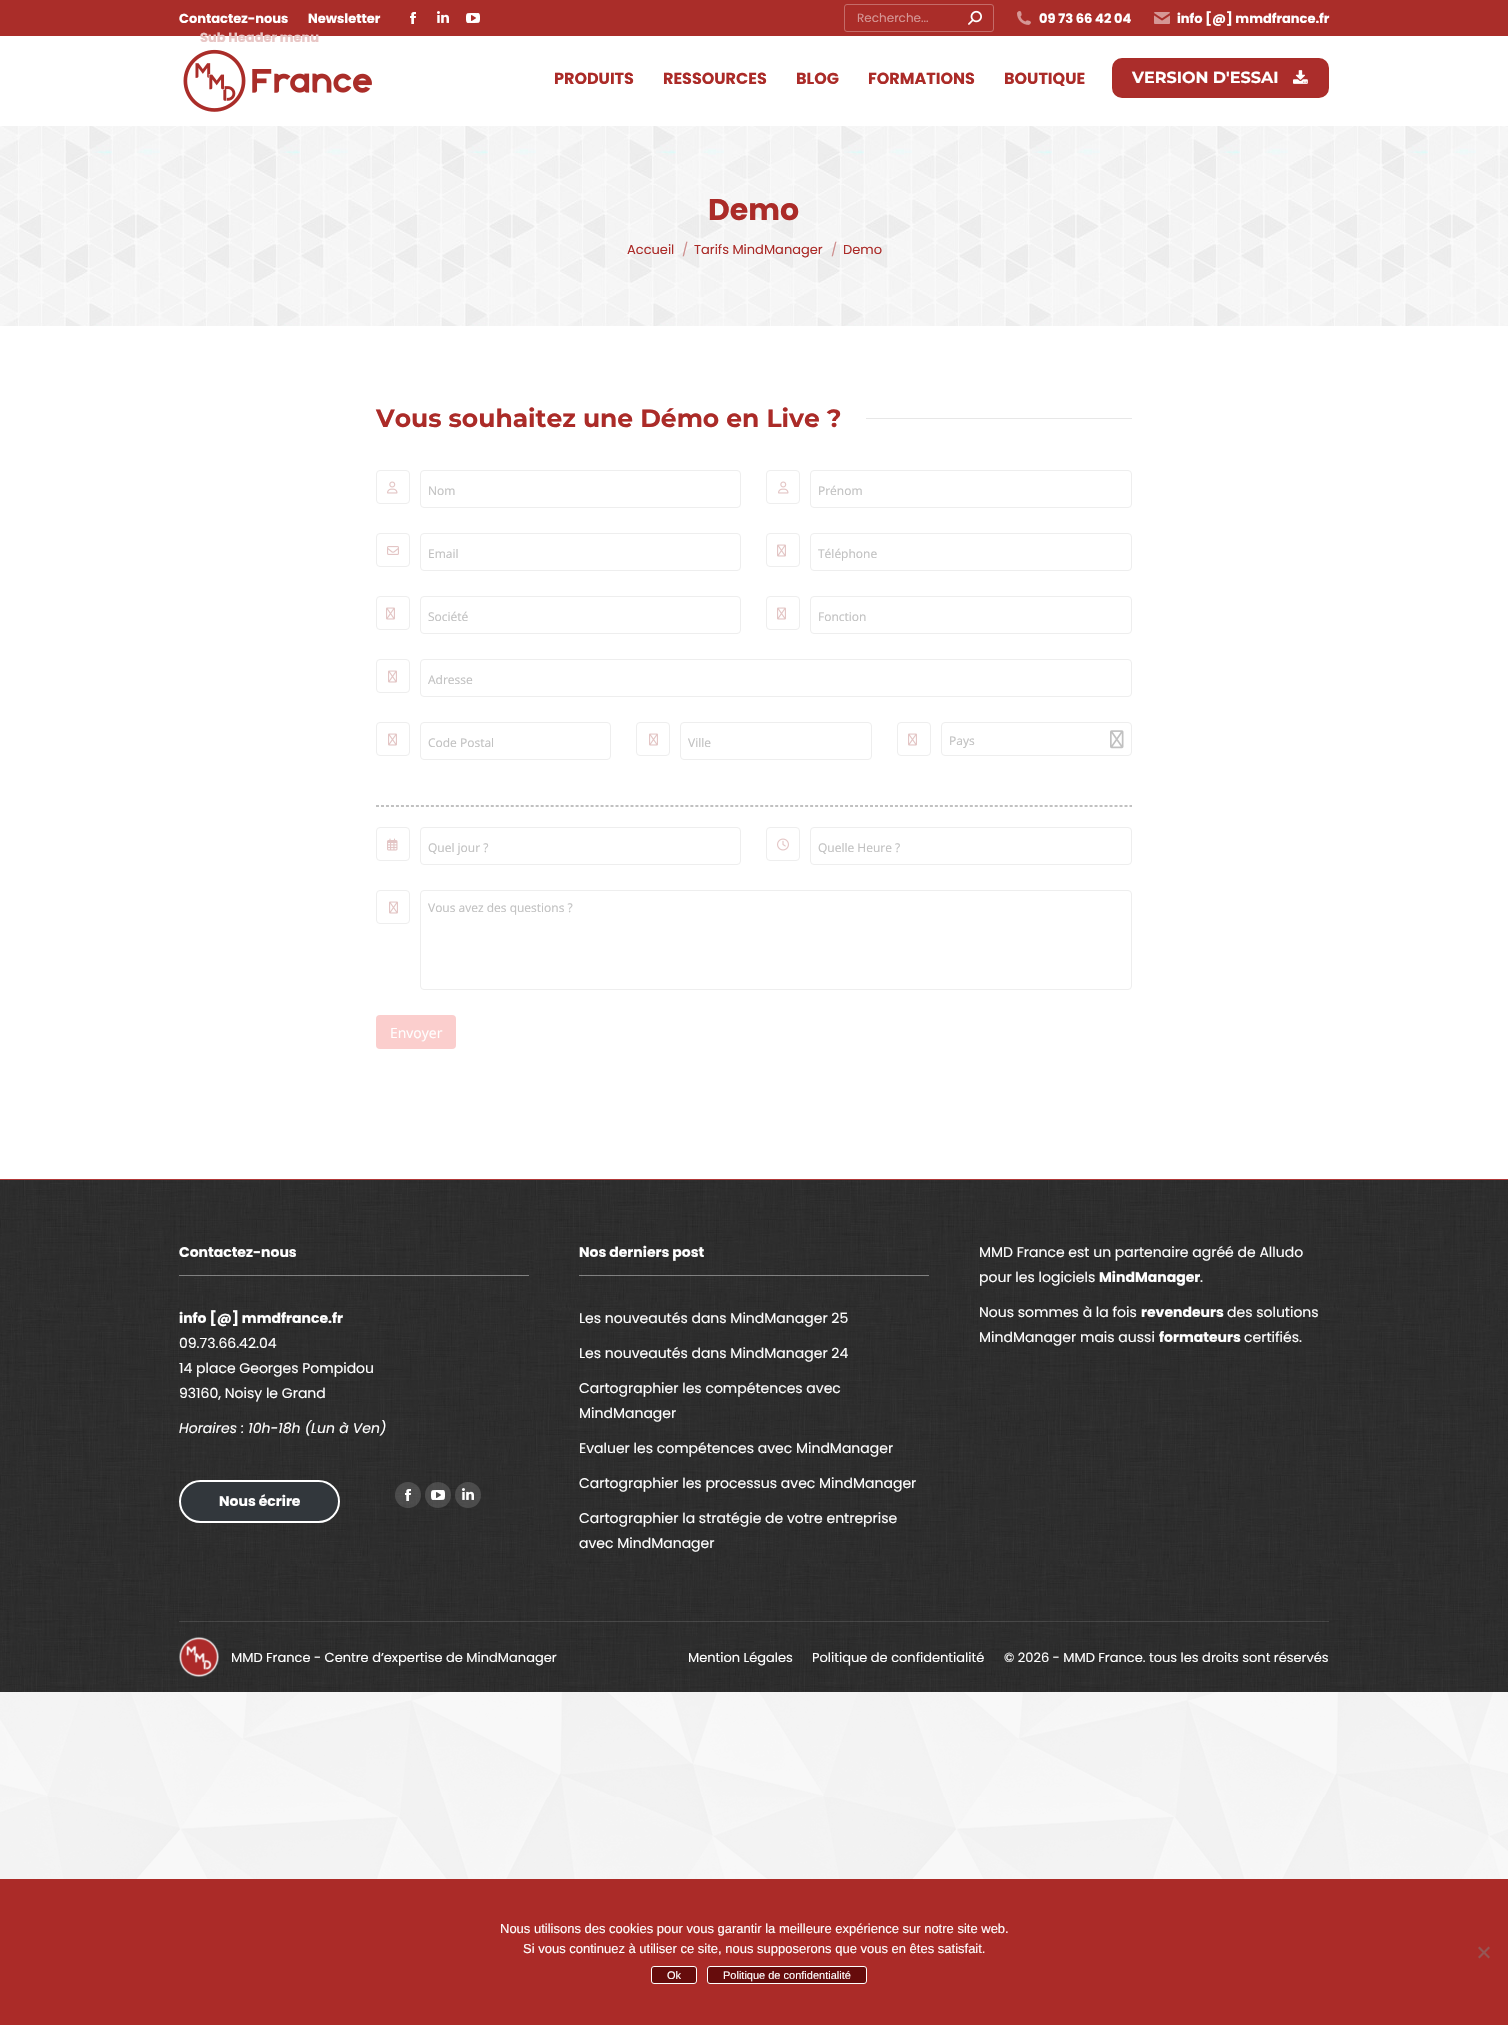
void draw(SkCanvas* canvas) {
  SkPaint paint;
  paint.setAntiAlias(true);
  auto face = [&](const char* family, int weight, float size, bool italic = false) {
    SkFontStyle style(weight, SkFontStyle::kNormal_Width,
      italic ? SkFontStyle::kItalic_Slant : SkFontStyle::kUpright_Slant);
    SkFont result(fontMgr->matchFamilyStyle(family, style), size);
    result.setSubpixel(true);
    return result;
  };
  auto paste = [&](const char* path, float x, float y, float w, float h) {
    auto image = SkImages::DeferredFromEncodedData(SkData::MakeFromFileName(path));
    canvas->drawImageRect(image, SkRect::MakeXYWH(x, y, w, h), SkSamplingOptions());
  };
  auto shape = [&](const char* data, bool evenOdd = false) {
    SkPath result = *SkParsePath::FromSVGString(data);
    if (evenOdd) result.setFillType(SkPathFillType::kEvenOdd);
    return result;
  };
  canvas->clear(0xfff7f7f7);
  paste("img/1.png", 0, 1692, 1508, 187);
  paint.setColor(0xffffffff);
  canvas->drawRect(SkRect::MakeXYWH(0, 36, 1508, 1143), paint);
  paint.setColor(0xffaa2d29);
  canvas->drawRect(SkRect::MakeXYWH(0, 0, 1508, 36), paint);
  paste("img/2.png", 410, 12, 6, 12);
  paste("img/3.png", 437, 11, 12, 12);
  paste("img/4.png", 466, 13, 14, 10);
  paint.setStroke(true);
  paint.setStrokeWidth(1);
  paint.setColor(0xffc46c69);
  canvas->drawRoundRect(SkRect::MakeXYWH(844.5f, 4.5f, 149, 27), 2.5f, 2.5f, paint);
  paste("img/5.png", 968, 10, 14, 15);
  paste("img/6.png", 1017, 11, 14, 14);
  paste("img/7.png", 1154, 12, 16, 12);
  paste("img/8.png", 183, 49, 189, 63);
  paint.setStroke(false);
  paint.setColor(0xffab2d2b);
  canvas->drawRoundRect(SkRect::MakeXYWH(1113, 59, 215, 38), 9, 9, paint);
  paint.setStroke(true);
  paint.setStrokeWidth(2);
  paint.setColor(0xffaa2d29);
  canvas->drawRoundRect(SkRect::MakeXYWH(1113, 59, 215, 38), 9, 9, paint);
  paste("img/9.png", 1293, 70, 15, 14);
  paste("img/10.png", 0, 126, 1508, 200);
  paint.setStroke(false);
  paint.setColor(0xffe7e7e7);
  canvas->drawRect(SkRect::MakeXYWH(866, 418, 266, 1), paint);
  paint.setStroke(true);
  paint.setStrokeWidth(1);
  paint.setColor(0xffeeeeee);
  canvas->drawRoundRect(SkRect::MakeXYWH(376.5f, 470.5f, 33, 33), 3.5f, 3.5f, paint);
  paste("img/11.png", 387, 481, 11, 13);
  canvas->drawRoundRect(SkRect::MakeXYWH(420.5f, 470.5f, 320, 37), 3.5f, 3.5f, paint);
  canvas->drawRoundRect(SkRect::MakeXYWH(766.5f, 470.5f, 33, 33), 3.5f, 3.5f, paint);
  paste("img/11.png", 778, 481, 11, 13);
  canvas->drawRoundRect(SkRect::MakeXYWH(810.5f, 470.5f, 321, 37), 3.5f, 3.5f, paint);
  canvas->drawRoundRect(SkRect::MakeXYWH(376.5f, 533.5f, 33, 33), 3.5f, 3.5f, paint);
  paste("img/12.png", 387, 546, 12, 9);
  canvas->drawRoundRect(SkRect::MakeXYWH(420.5f, 533.5f, 320, 37), 3.5f, 3.5f, paint);
  canvas->drawRoundRect(SkRect::MakeXYWH(766.5f, 533.5f, 33, 33), 3.5f, 3.5f, paint);
  paste("img/13.png", 777, 544, 9, 13);
  canvas->drawRoundRect(SkRect::MakeXYWH(810.5f, 533.5f, 321, 37), 3.5f, 3.5f, paint);
  canvas->drawRoundRect(SkRect::MakeXYWH(376.5f, 596.5f, 33, 33), 3.5f, 3.5f, paint);
  paste("img/13.png", 386, 607, 9, 13);
  canvas->drawRoundRect(SkRect::MakeXYWH(420.5f, 596.5f, 320, 37), 3.5f, 3.5f, paint);
  canvas->drawRoundRect(SkRect::MakeXYWH(766.5f, 596.5f, 33, 33), 3.5f, 3.5f, paint);
  paste("img/13.png", 777, 607, 9, 13);
  canvas->drawRoundRect(SkRect::MakeXYWH(810.5f, 596.5f, 321, 37), 3.5f, 3.5f, paint);
  canvas->drawRoundRect(SkRect::MakeXYWH(376.5f, 659.5f, 33, 33), 3.5f, 3.5f, paint);
  paste("img/13.png", 388, 670, 9, 13);
  canvas->drawRoundRect(SkRect::MakeXYWH(420.5f, 659.5f, 711, 37), 3.5f, 3.5f, paint);
  canvas->drawRoundRect(SkRect::MakeXYWH(376.5f, 722.5f, 33, 33), 3.5f, 3.5f, paint);
  paste("img/13.png", 388, 733, 9, 13);
  canvas->drawRoundRect(SkRect::MakeXYWH(420.5f, 722.5f, 190, 37), 3.5f, 3.5f, paint);
  canvas->drawRoundRect(SkRect::MakeXYWH(636.5f, 722.5f, 33, 33), 3.5f, 3.5f, paint);
  paste("img/13.png", 649, 733, 9, 13);
  canvas->drawRoundRect(SkRect::MakeXYWH(680.5f, 722.5f, 191, 37), 3.5f, 3.5f, paint);
  canvas->drawRoundRect(SkRect::MakeXYWH(897.5f, 722.5f, 33, 33), 3.5f, 3.5f, paint);
  paste("img/13.png", 908, 733, 9, 13);
  canvas->drawRoundRect(SkRect::MakeXYWH(941.5f, 722.5f, 190, 33), 3.5f, 3.5f, paint);
  paste("img/14.png", 1110, 730, 14, 19);
  paint.setColor(0xffc1c1c1);
  paint.setPathEffect(SkDashPathEffect::Make({{3, 1.99f}}, 0));
  canvas->drawPath(shape("M376 805.5H1132"), paint);
  paint.setPathEffect(nullptr);
  paint.setPathEffect(SkDashPathEffect::Make({{3, 1.99f}}, 0));
  canvas->drawPath(shape("M376 806.5H1132"), paint);
  paint.setPathEffect(nullptr);
  paint.setColor(0xffeeeeee);
  canvas->drawRoundRect(SkRect::MakeXYWH(376.5f, 827.5f, 33, 33), 3.5f, 3.5f, paint);
  paste("img/15.png", 387, 838, 11, 13);
  canvas->drawRoundRect(SkRect::MakeXYWH(420.5f, 827.5f, 320, 37), 3.5f, 3.5f, paint);
  canvas->drawRoundRect(SkRect::MakeXYWH(766.5f, 827.5f, 33, 33), 3.5f, 3.5f, paint);
  paste("img/16.png", 777, 838, 12, 13);
  canvas->drawRoundRect(SkRect::MakeXYWH(810.5f, 827.5f, 321, 37), 3.5f, 3.5f, paint);
  canvas->drawRoundRect(SkRect::MakeXYWH(376.5f, 890.5f, 33, 33), 3.5f, 3.5f, paint);
  paste("img/13.png", 389, 901, 9, 13);
  canvas->drawRoundRect(SkRect::MakeXYWH(420.5f, 890.5f, 711, 99), 3.5f, 3.5f, paint);
  paint.setStroke(false);
  paint.setColor(0xfffbcecd);
  canvas->drawRoundRect(SkRect::MakeXYWH(376, 1015, 80, 34), 4, 4, paint);
  paste("img/17.png", 0, 1179, 1508, 513);
  paint.setColor(0xf5b53838);
  canvas->drawRect(SkRect::MakeXYWH(0, 1179, 1508, 1), paint);
  paint.setColor(0x66ffffff);
  canvas->drawRect(SkRect::MakeXYWH(179, 1275, 350, 1), paint);
  paint.setColor(0xff32373c);
  canvas->drawRoundRect(SkRect::MakeXYWH(180, 1481, 159, 41), 20.5f, 20.5f, paint);
  paint.setStroke(true);
  paint.setStrokeWidth(2);
  paint.setColor(0xffffffff);
  canvas->drawRoundRect(SkRect::MakeXYWH(180, 1481, 159, 41), 20.5f, 20.5f, paint);
  paint.setStroke(false);
  paint.setColor(0x26ffffff);
  canvas->drawCircle(408, 1495, 13, paint);
  paste("img/18.png", 405, 1489, 6, 12);
  canvas->drawCircle(438, 1495, 13, paint);
  paste("img/19.png", 431, 1490, 14, 10);
  canvas->drawCircle(468, 1495, 13, paint);
  paste("img/20.png", 462, 1488, 12, 12);
  paint.setColor(0x66ffffff);
  canvas->drawRect(SkRect::MakeXYWH(579, 1275, 350, 1), paint);
  paint.setColor(0x1fffffff);
  canvas->drawRect(SkRect::MakeXYWH(179, 1621, 1150, 1), paint);
  paste("img/21.png", 179, 1637, 40, 40);
  paint.setColor(0xffab2b28);
  canvas->drawRect(SkRect::MakeXYWH(0, 1879, 1508, 146), paint);
  paint.setColor(0xff965654);
  canvas->drawPath(shape("M1488.5 1946.5L1490 1948L1479.5 1958.5L1478 1957Z"), paint);
  canvas->drawPath(shape("M1478 1948L1479.5 1946.5L1490 1957L1488.5 1958.5Z"), paint);
  paint.setColor(0xff660c0c);
  canvas->drawRoundRect(SkRect::MakeXYWH(651.5f, 1966.5f, 45, 17), 2.5f, 2.5f, paint);
  paint.setStroke(true);
  paint.setStrokeWidth(1);
  paint.setColor(0xffffffff);
  canvas->drawRoundRect(SkRect::MakeXYWH(651.5f, 1966.5f, 45, 17), 2.5f, 2.5f, paint);
  paint.setStroke(false);
  paint.setColor(0xff660c0c);
  canvas->drawRoundRect(SkRect::MakeXYWH(707.5f, 1966.5f, 159, 17), 2.5f, 2.5f, paint);
  paint.setStroke(true);
  paint.setColor(0xffffffff);
  canvas->drawRoundRect(SkRect::MakeXYWH(707.5f, 1966.5f, 159, 17), 2.5f, 2.5f, paint);
  auto f0 = face("Poppins", 700, 13);
  paint.setStroke(false);
  canvas->drawString("Contactez-nous", 179, 23, f0, paint);
  canvas->drawString("Newsletter", 308, 23, f0, paint);
  paint.setColor(0xffe8c6c5);
  canvas->drawString("Sub Header menu", 200, 42, f0, paint);
  auto f1 = face("Poppins", 400, 12);
  paint.setColor(0xffd59694);
  canvas->drawString("Recherche...", 857, 22, f1, paint);
  paint.setColor(0xffffffff);
  canvas->drawString("09 73 66 42 04", 1039, 23, f0, paint);
  canvas->drawString("info [@] mmdfrance.fr", 1177, 23, f0, paint);
  auto f2 = face("Poppins", 700, 16);
  paint.setColor(0xffab2b28);
  {
    const struct { const char* s; float x, y; } items[] = {
      {"PRODUITS", 554, 84},
      {"RESSOURCES", 663, 84},
      {"BLOG", 796, 84},
      {"FORMATIONS", 868, 84},
      {"BOUTIQUE", 1004, 84},
    };
    for (auto [s, x, y] : items) {
      canvas->drawString(s, x, y, f2, paint);
    }
  }
  auto f3 = face("Montserrat", 700, 16);
  paint.setColor(0xffffffff);
  canvas->drawString("VERSION D'ESSAI", 1132, 83, f3, paint);
  auto f4 = face("Poppins", 700, 30);
  paint.setColor(0xffab2b28);
  canvas->drawString("Demo", 708, 220, f4, paint);
  auto f5 = face("Poppins", 400, 13);
  canvas->drawString("Accueil", 627, 254, f5, paint);
  paint.setColor(0xffce8e8d);
  canvas->drawString("/", 682, 254, f5, paint);
  paint.setColor(0xffab2b28);
  canvas->drawString("Tarifs MindManager", 694, 254, f5, paint);
  paint.setColor(0xffce8e8d);
  canvas->drawString("/", 831, 254, f5, paint);
  paint.setColor(0xffab2b28);
  canvas->drawString("Demo", 843, 254, f5, paint);
  auto f6 = face("Montserrat", 700, 25);
  canvas->drawString("Vous souhaitez une Démo en Live ?", 376, 427, f6, paint);
  auto f7 = face("Open Sans", 400, 12);
  paint.setColor(0xffc1c1c1);
  {
    const struct { const char* s; float x, y; } items[] = {
      {"Nom", 428, 495},
      {"Prénom", 818, 495},
      {"Email", 428, 558},
      {"Téléphone", 818, 558},
      {"Société", 428, 621},
      {"Fonction", 818, 621},
      {"Adresse", 428, 684},
      {"Code Postal", 428, 747},
      {"Ville", 688, 747},
      {"Pays", 949, 745},
      {"Quel jour ?", 428, 852},
      {"Quelle Heure ?", 818, 852},
      {"Vous avez des questions ?", 428, 912},
    };
    for (auto [s, x, y] : items) {
      canvas->drawString(s, x, y, f7, paint);
    }
  }
  auto f8 = face("Open Sans", 400, 14);
  paint.setColor(0xffffffff);
  canvas->drawString("Envoyer", 390, 1038, f8, paint);
  auto f9 = face("Poppins", 700, 14);
  canvas->drawString("Contactez-nous", 179, 1257, f9, paint);
  canvas->drawString("info [@] mmdfrance.fr", 179, 1323, f9, paint);
  auto f10 = face("Poppins", 400, 14);
  {
    const struct { const char* s; float x, y; } items[] = {
      {"09.73.66.42.04", 179, 1348},
      {"14 place Georges Pompidou", 179, 1373},
      {"93160, Noisy le Grand", 179, 1398},
    };
    for (auto [s, x, y] : items) {
      canvas->drawString(s, x, y, f10, paint);
    }
  }
  auto f11 = face("Poppins", 400, 14, true);
  canvas->drawString("Horaires : 10h-18h (Lun à Ven)", 179, 1433, f11, paint);
  canvas->drawString("Nous écrire", 219, 1506, f9, paint);
  canvas->drawString("Nos derniers post", 579, 1257, f9, paint);
  {
    const struct { const char* s; float x, y; } items[] = {
      {"Les nouveautés dans MindManager 25", 579, 1323},
      {"Les nouveautés dans MindManager 24", 579, 1358},
      {"Cartographier les compétences avec", 579, 1393},
      {"MindManager", 579, 1418},
      {"Evaluer les compétences avec MindManager", 579, 1453},
      {"Cartographier les processus avec MindManager", 579, 1488},
      {"Cartographier la stratégie de votre entreprise", 579, 1523},
      {"avec MindManager", 579, 1548},
      {"MMD France est un partenaire agréé de Alludo", 979, 1257},
      {"pour les logiciels", 979, 1282},
    };
    for (auto [s, x, y] : items) {
      canvas->drawString(s, x, y, f10, paint);
    }
  }
  canvas->drawString("MindManager", 1099, 1282, f9, paint);
  canvas->drawString(".", 1200, 1282, f10, paint);
  canvas->drawString("Nous sommes à la fois", 979, 1317, f10, paint);
  canvas->drawString("revendeurs", 1141, 1317, f9, paint);
  canvas->drawString("des solutions", 1227, 1317, f10, paint);
  canvas->drawString("MindManager mais aussi", 979, 1342, f10, paint);
  canvas->drawString("formateurs", 1159, 1342, f9, paint);
  canvas->drawString("certifiés.", 1244, 1342, f10, paint);
  {
    const struct { const char* s; float x, y; } items[] = {
      {"MMD France - Centre d’expertise de MindManager", 231, 1662},
      {"Mention Légales", 688, 1662},
      {"Politique de confidentialité", 812, 1662},
      {"© 2026 - MMD France. tous les droits sont réservés", 1004, 1662},
    };
    for (auto [s, x, y] : items) {
      canvas->drawString(s, x, y, f5, paint);
    }
  }
  auto f12 = face("Liberation Sans", 400, 13);
  canvas->drawString("Nous utilisons des cookies pour vous garantir la meilleure expérience sur notre site web.", 500, 1933, f12, paint);
  canvas->drawString("Si vous continuez à utiliser ce site, nous supposerons que vous en êtes satisfait.", 523, 1953, f12, paint);
  auto f13 = face("Liberation Sans", 400, 11);
  canvas->drawString("Ok", 667, 1979, f13, paint);
  canvas->drawString("Politique de confidentialité", 723, 1979, f13, paint);
}
